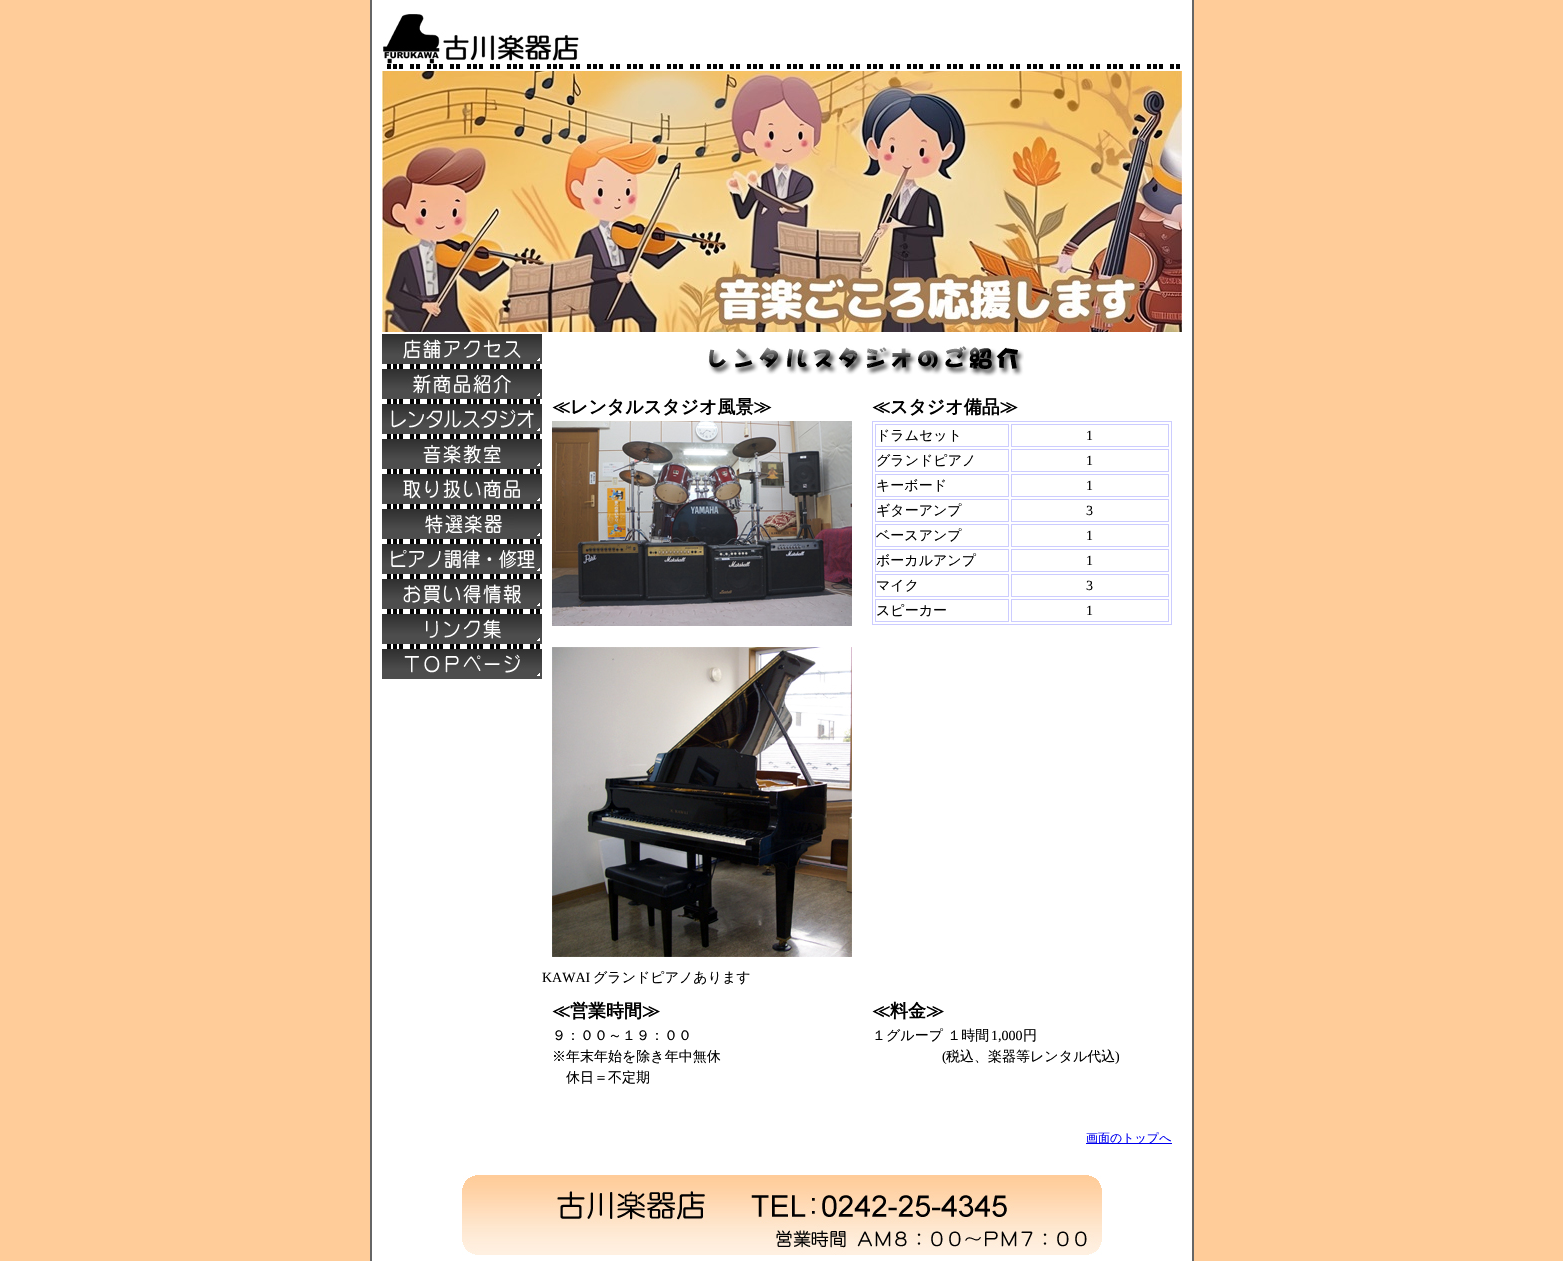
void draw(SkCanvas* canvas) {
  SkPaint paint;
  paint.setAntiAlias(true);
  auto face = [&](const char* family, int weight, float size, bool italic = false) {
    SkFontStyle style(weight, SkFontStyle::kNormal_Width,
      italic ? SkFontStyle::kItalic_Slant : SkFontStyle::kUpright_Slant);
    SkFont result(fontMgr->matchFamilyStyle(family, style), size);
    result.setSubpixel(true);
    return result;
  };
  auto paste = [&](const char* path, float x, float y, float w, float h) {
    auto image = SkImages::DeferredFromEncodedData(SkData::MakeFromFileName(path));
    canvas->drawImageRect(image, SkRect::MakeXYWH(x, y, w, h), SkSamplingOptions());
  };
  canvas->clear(0xffffcc99);
  paint.setColor(0xffffffff);
  canvas->drawRect(SkRect::MakeXYWH(371, -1, 822, 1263), paint);
  paint.setStroke(true);
  paint.setStrokeWidth(2);
  paint.setColor(0xff666666);
  canvas->drawRect(SkRect::MakeXYWH(371, -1, 822, 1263), paint);
  paste("img/1.png", 383, 14, 196, 50);
  paste("img/2.png", 387, 64, 153, 5);
  paste("img/2.png", 547, 64, 153, 5);
  paste("img/2.png", 707, 64, 153, 5);
  paste("img/2.png", 867, 64, 153, 5);
  paste("img/2.png", 1027, 64, 153, 5);
  paste("img/3.png", 382, 71, 800, 261);
  paste("img/4.png", 382, 334, 160, 30);
  paste("img/2.png", 387, 364, 153, 5);
  paste("img/5.png", 382, 369, 160, 30);
  paste("img/2.png", 387, 399, 153, 5);
  paste("img/6.png", 382, 404, 160, 30);
  paste("img/2.png", 387, 434, 153, 5);
  paste("img/7.png", 382, 439, 160, 30);
  paste("img/2.png", 387, 469, 153, 5);
  paste("img/8.png", 382, 474, 160, 30);
  paste("img/2.png", 387, 504, 153, 5);
  paste("img/9.png", 382, 509, 160, 30);
  paste("img/2.png", 387, 539, 153, 5);
  paste("img/10.png", 382, 544, 160, 30);
  paste("img/2.png", 387, 574, 153, 5);
  paste("img/11.png", 382, 579, 160, 30);
  paste("img/2.png", 387, 609, 153, 5);
  paste("img/12.png", 382, 614, 160, 30);
  paste("img/2.png", 387, 644, 153, 5);
  paste("img/13.png", 382, 649, 160, 30);
  paste("img/14.png", 708, 346, 316, 31);
  paste("img/15.png", 552, 421, 300, 205);
  paste("img/16.png", 552, 647, 300, 310);
  paint.setStrokeWidth(1);
  paint.setColor(0xffccccff);
  canvas->drawRect(SkRect::MakeXYWH(872.5f, 421.5f, 299, 203), paint);
  canvas->drawRect(SkRect::MakeXYWH(875.5f, 424.5f, 133, 22), paint);
  canvas->drawRect(SkRect::MakeXYWH(1011.5f, 424.5f, 157, 22), paint);
  canvas->drawRect(SkRect::MakeXYWH(875.5f, 449.5f, 133, 22), paint);
  canvas->drawRect(SkRect::MakeXYWH(1011.5f, 449.5f, 157, 22), paint);
  canvas->drawRect(SkRect::MakeXYWH(875.5f, 474.5f, 133, 22), paint);
  canvas->drawRect(SkRect::MakeXYWH(1011.5f, 474.5f, 157, 22), paint);
  canvas->drawRect(SkRect::MakeXYWH(875.5f, 499.5f, 133, 22), paint);
  canvas->drawRect(SkRect::MakeXYWH(1011.5f, 499.5f, 157, 22), paint);
  canvas->drawRect(SkRect::MakeXYWH(875.5f, 524.5f, 133, 22), paint);
  canvas->drawRect(SkRect::MakeXYWH(1011.5f, 524.5f, 157, 22), paint);
  canvas->drawRect(SkRect::MakeXYWH(875.5f, 549.5f, 133, 22), paint);
  canvas->drawRect(SkRect::MakeXYWH(1011.5f, 549.5f, 157, 22), paint);
  canvas->drawRect(SkRect::MakeXYWH(875.5f, 574.5f, 133, 22), paint);
  canvas->drawRect(SkRect::MakeXYWH(1011.5f, 574.5f, 157, 22), paint);
  canvas->drawRect(SkRect::MakeXYWH(875.5f, 599.5f, 133, 22), paint);
  canvas->drawRect(SkRect::MakeXYWH(1011.5f, 599.5f, 157, 22), paint);
  paint.setStroke(false);
  paint.setColor(0xff0000ee);
  canvas->drawRect(SkRect::MakeXYWH(1086, 1143, 86, 1), paint);
  paste("img/17.png", 462, 1175, 640, 80);
  auto f0 = face("WenQuanYi Zen Hei", 700, 18);
  paint.setColor(0xff000000);
  canvas->drawString("≪レンタルスタジオ風景≫", 552, 413, f0, paint);
  auto f1 = face("Liberation Serif", 400, 14);
  canvas->drawString("KAWAI", 542, 982, f1, paint);
  auto f2 = face("WenQuanYi Zen Hei", 500, 14);
  canvas->drawString("グランドピアノあります", 593, 982, f2, paint);
  canvas->drawString("≪スタジオ備品≫", 872, 413, f0, paint);
  canvas->drawString("ドラムセット", 876, 440, f2, paint);
  canvas->drawString("1", 1086, 440, f1, paint);
  canvas->drawString("グランドピアノ", 876, 465, f2, paint);
  canvas->drawString("1", 1086, 465, f1, paint);
  canvas->drawString("キーボード", 876, 490, f2, paint);
  canvas->drawString("1", 1086, 490, f1, paint);
  canvas->drawString("ギターアンプ", 876, 515, f2, paint);
  canvas->drawString("3", 1086, 515, f1, paint);
  canvas->drawString("ベースアンプ", 876, 540, f2, paint);
  canvas->drawString("1", 1086, 540, f1, paint);
  canvas->drawString("ボーカルアンプ", 876, 565, f2, paint);
  canvas->drawString("1", 1086, 565, f1, paint);
  canvas->drawString("マイク", 876, 590, f2, paint);
  canvas->drawString("3", 1086, 590, f1, paint);
  canvas->drawString("スピーカー", 876, 615, f2, paint);
  canvas->drawString("1", 1086, 615, f1, paint);
  canvas->drawString("≪営業時間≫", 552, 1017, f0, paint);
  {
    const struct { const char* s; float x, y; } items[] = {
      {"９：００～１９：００", 552, 1040},
      {"※年末年始を除き年中無休", 552, 1061},
      {"休日＝不定期", 566, 1082},
    };
    for (auto [s, x, y] : items) {
      canvas->drawString(s, x, y, f2, paint);
    }
  }
  canvas->drawString("≪料金≫", 872, 1017, f0, paint);
  canvas->drawString("１グループ １時間", 872, 1040, f2, paint);
  canvas->drawString("1,000", 991, 1040, f1, paint);
  canvas->drawString("円", 1023, 1040, f2, paint);
  canvas->drawString("(", 942, 1061, f1, paint);
  canvas->drawString("税込、楽器等レンタル代込", 946, 1061, f2, paint);
  canvas->drawString(")", 1115, 1061, f1, paint);
  auto f3 = face("WenQuanYi Zen Hei", 500, 12);
  paint.setColor(0xff0000ee);
  canvas->drawString("画面のトップへ", 1086, 1142, f3, paint);
}
